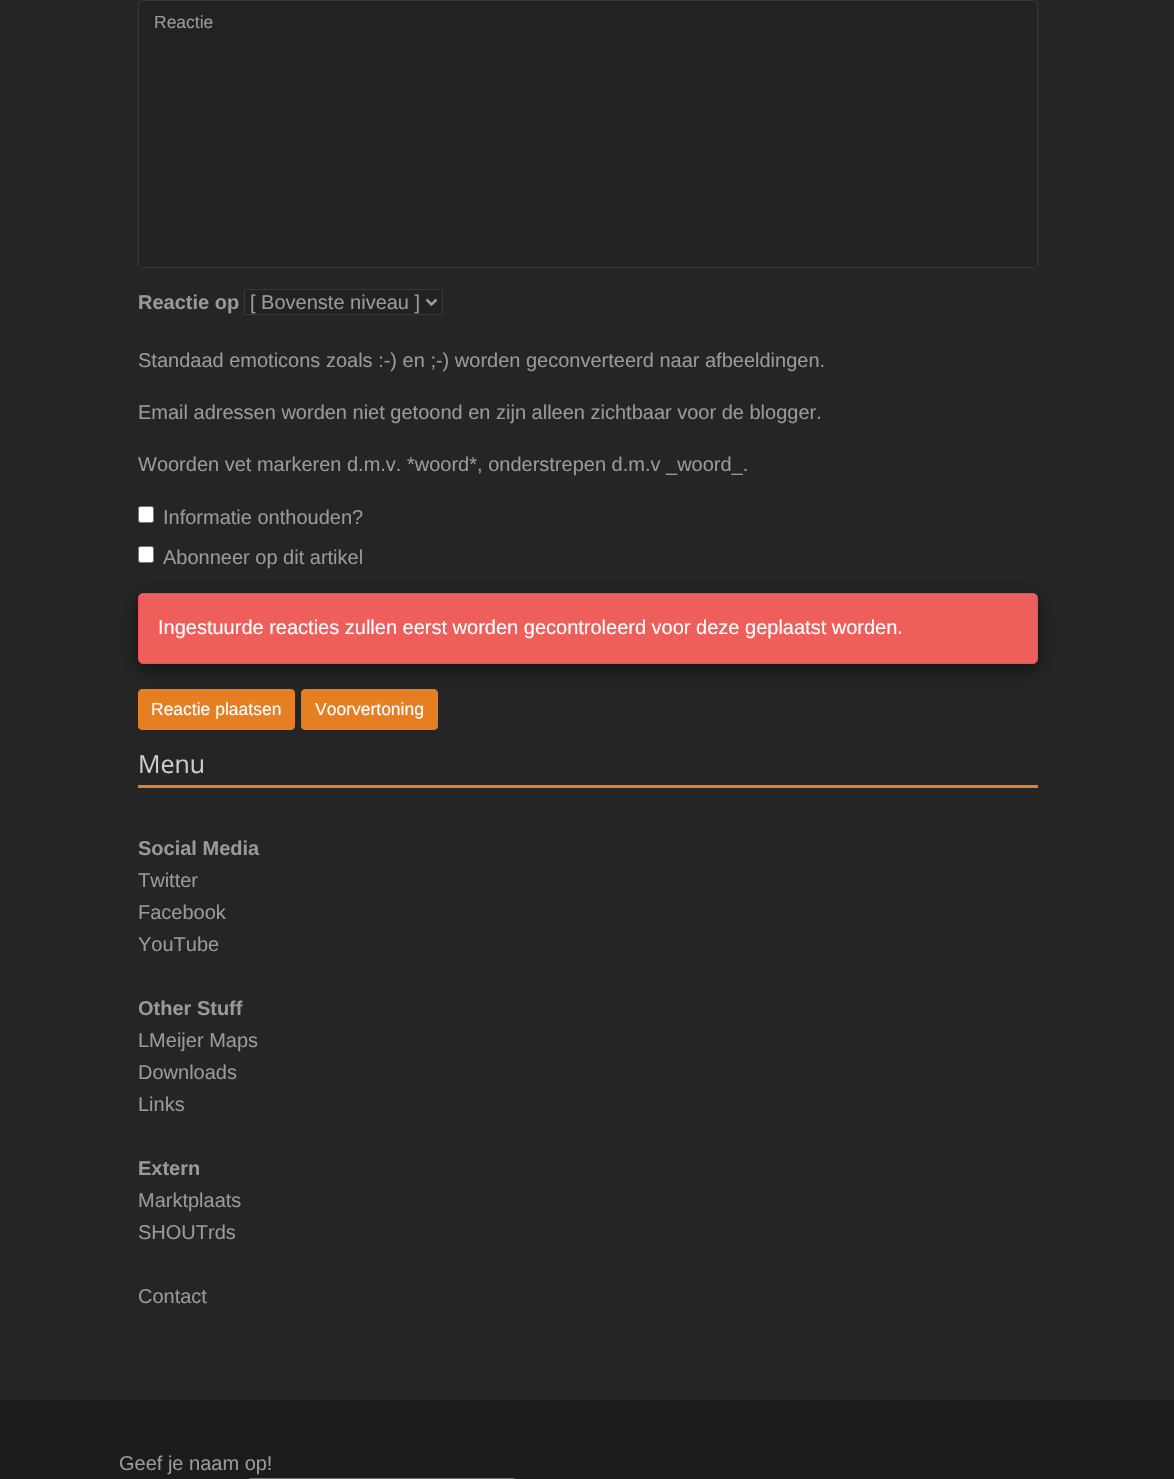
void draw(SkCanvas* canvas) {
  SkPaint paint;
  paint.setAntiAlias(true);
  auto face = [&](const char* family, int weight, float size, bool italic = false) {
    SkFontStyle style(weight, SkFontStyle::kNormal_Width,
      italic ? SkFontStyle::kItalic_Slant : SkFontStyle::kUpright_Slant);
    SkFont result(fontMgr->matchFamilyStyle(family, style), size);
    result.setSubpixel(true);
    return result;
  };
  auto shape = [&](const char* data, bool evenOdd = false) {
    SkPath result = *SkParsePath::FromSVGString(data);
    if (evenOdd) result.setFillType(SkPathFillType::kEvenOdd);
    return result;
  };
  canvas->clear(0xff252525);
  paint.setColor(0xff222222);
  canvas->drawRoundRect(SkRect::MakeXYWH(138, 0, 900, 268), 5, 5, paint);
  paint.setColor(0xff1f1f1f);
  canvas->drawPath(shape("M142 2H1032C1035 2 1036 4 1036 6C1036 3 1035 1 1032 1H143C140 1 139 3 139 6C139 4 140 2 142 2Z"), paint);
  paint.setStroke(true);
  paint.setStrokeWidth(1);
  paint.setColor(0xff383838);
  canvas->drawRoundRect(SkRect::MakeXYWH(138.5f, 0.5f, 899, 267), 4.5f, 4.5f, paint);
  paint.setStroke(false);
  paint.setColor(0xff222222);
  canvas->drawRect(SkRect::MakeXYWH(244.5f, 289.5f, 198, 25), paint);
  paint.setStroke(true);
  paint.setColor(0xff383838);
  canvas->drawRect(SkRect::MakeXYWH(244.5f, 289.5f, 198, 25), paint);
  paint.setStrokeWidth(2.5f);
  paint.setColor(0xff999999);
  canvas->drawPath(shape("M426.5 299.5L431.5 304.5L436.5 299.5"), paint);
  paint.setStroke(false);
  paint.setColor(0xffffffff);
  canvas->drawRoundRect(SkRect::MakeXYWH(138.5f, 506.5f, 15, 16), 2, 2, paint);
  paint.setStroke(true);
  paint.setStrokeWidth(1);
  paint.setColor(0xff767676);
  canvas->drawRoundRect(SkRect::MakeXYWH(138.5f, 506.5f, 15, 16), 2, 2, paint);
  paint.setStroke(false);
  paint.setColor(0xffffffff);
  canvas->drawRoundRect(SkRect::MakeXYWH(138.5f, 546.5f, 15, 16), 2, 2, paint);
  paint.setStroke(true);
  paint.setColor(0xff767676);
  canvas->drawRoundRect(SkRect::MakeXYWH(138.5f, 546.5f, 15, 16), 2, 2, paint);
  paint.setStroke(false);
  paint.setColor(0x80000000);
  paint.setMaskFilter(SkMaskFilter::MakeBlur(kNormal_SkBlurStyle, 9.5f));
  canvas->drawRoundRect(SkRect::MakeXYWH(138, 599, 900, 71), 5, 5, paint);
  paint.setMaskFilter(nullptr);
  paint.setColor(0xffee5f5b);
  canvas->drawRoundRect(SkRect::MakeXYWH(138.5f, 593.5f, 899, 70), 4.5f, 4.5f, paint);
  paint.setStroke(true);
  paint.setColor(0xffed4d63);
  canvas->drawRoundRect(SkRect::MakeXYWH(138.5f, 593.5f, 899, 70), 4.5f, 4.5f, paint);
  paint.setStroke(false);
  paint.setColor(0xffe67e22);
  canvas->drawRoundRect(SkRect::MakeXYWH(138.5f, 689.5f, 156, 40), 3.5f, 3.5f, paint);
  paint.setStroke(true);
  canvas->drawRoundRect(SkRect::MakeXYWH(138.5f, 689.5f, 156, 40), 3.5f, 3.5f, paint);
  paint.setStroke(false);
  canvas->drawRoundRect(SkRect::MakeXYWH(301.5f, 689.5f, 136, 40), 3.5f, 3.5f, paint);
  paint.setStroke(true);
  canvas->drawRoundRect(SkRect::MakeXYWH(301.5f, 689.5f, 136, 40), 3.5f, 3.5f, paint);
  paint.setStroke(false);
  canvas->drawRect(SkRect::MakeXYWH(138, 785, 900, 3), paint);
  paint.setColor(0xff1c1c1c);
  canvas->drawRect(SkRect::MakeXYWH(0, 1400, 1174, 79), paint);
  paint.setStroke(true);
  paint.setColor(0xff767676);
  canvas->drawRoundRect(SkRect::MakeXYWH(248.5f, 1478.5f, 267, 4), 2, 2, paint);
  auto f0 = face("Liberation Sans", 400, 17.5f);
  paint.setStroke(false);
  paint.setColor(0xff999999);
  canvas->drawString("Reactie", 154, 28, f0, paint);
  auto f1 = face("Liberation Sans", 700, 20);
  canvas->drawString("Reactie op", 138, 309, f1, paint);
  auto f2 = face("Liberation Sans", 400, 20);
  {
    const struct { const char* s; float x, y; } items[] = {
      {"[ Bovenste niveau ]", 250, 309},
      {"Standaad emoticons zoals :-) en ;-) worden geconverteerd naar afbeeldingen.", 138, 367},
      {"Email adressen worden niet getoond en zijn alleen zichtbaar voor de blogger.", 138, 419},
      {"Woorden vet markeren d.m.v. *woord*, onderstrepen d.m.v _woord_.", 138, 471},
      {"Informatie onthouden?", 163, 524},
      {"Abonneer op dit artikel", 163, 564},
    };
    for (auto [s, x, y] : items) {
      canvas->drawString(s, x, y, f2, paint);
    }
  }
  paint.setColor(0xffffffff);
  canvas->drawString("Ingestuurde reacties zullen eerst worden gecontroleerd voor deze geplaatst worden.", 158, 634, f2, paint);
  canvas->drawString("Reactie plaatsen", 151, 715, f0, paint);
  canvas->drawString("Voorvertoning", 315, 715, f0, paint);
  auto f3 = face("Open Sans", 400, 25);
  paint.setColor(0xffcccccc);
  canvas->drawString("Menu", 138, 773, f3, paint);
  paint.setColor(0xff999999);
  canvas->drawString("Social Media", 138, 855, f1, paint);
  {
    const struct { const char* s; float x, y; } items[] = {
      {"Twitter", 138, 887},
      {"Facebook", 138, 919},
      {"YouTube", 138, 951},
    };
    for (auto [s, x, y] : items) {
      canvas->drawString(s, x, y, f2, paint);
    }
  }
  canvas->drawString("Other Stuff", 138, 1015, f1, paint);
  {
    const struct { const char* s; float x, y; } items[] = {
      {"LMeijer Maps", 138, 1047},
      {"Downloads", 138, 1079},
      {"Links", 138, 1111},
    };
    for (auto [s, x, y] : items) {
      canvas->drawString(s, x, y, f2, paint);
    }
  }
  canvas->drawString("Extern", 138, 1175, f1, paint);
  {
    const struct { const char* s; float x, y; } items[] = {
      {"Marktplaats", 138, 1207},
      {"SHOUTrds", 138, 1239},
      {"Contact", 138, 1303},
      {"Geef je naam op!", 119, 1470},
    };
    for (auto [s, x, y] : items) {
      canvas->drawString(s, x, y, f2, paint);
    }
  }
}
